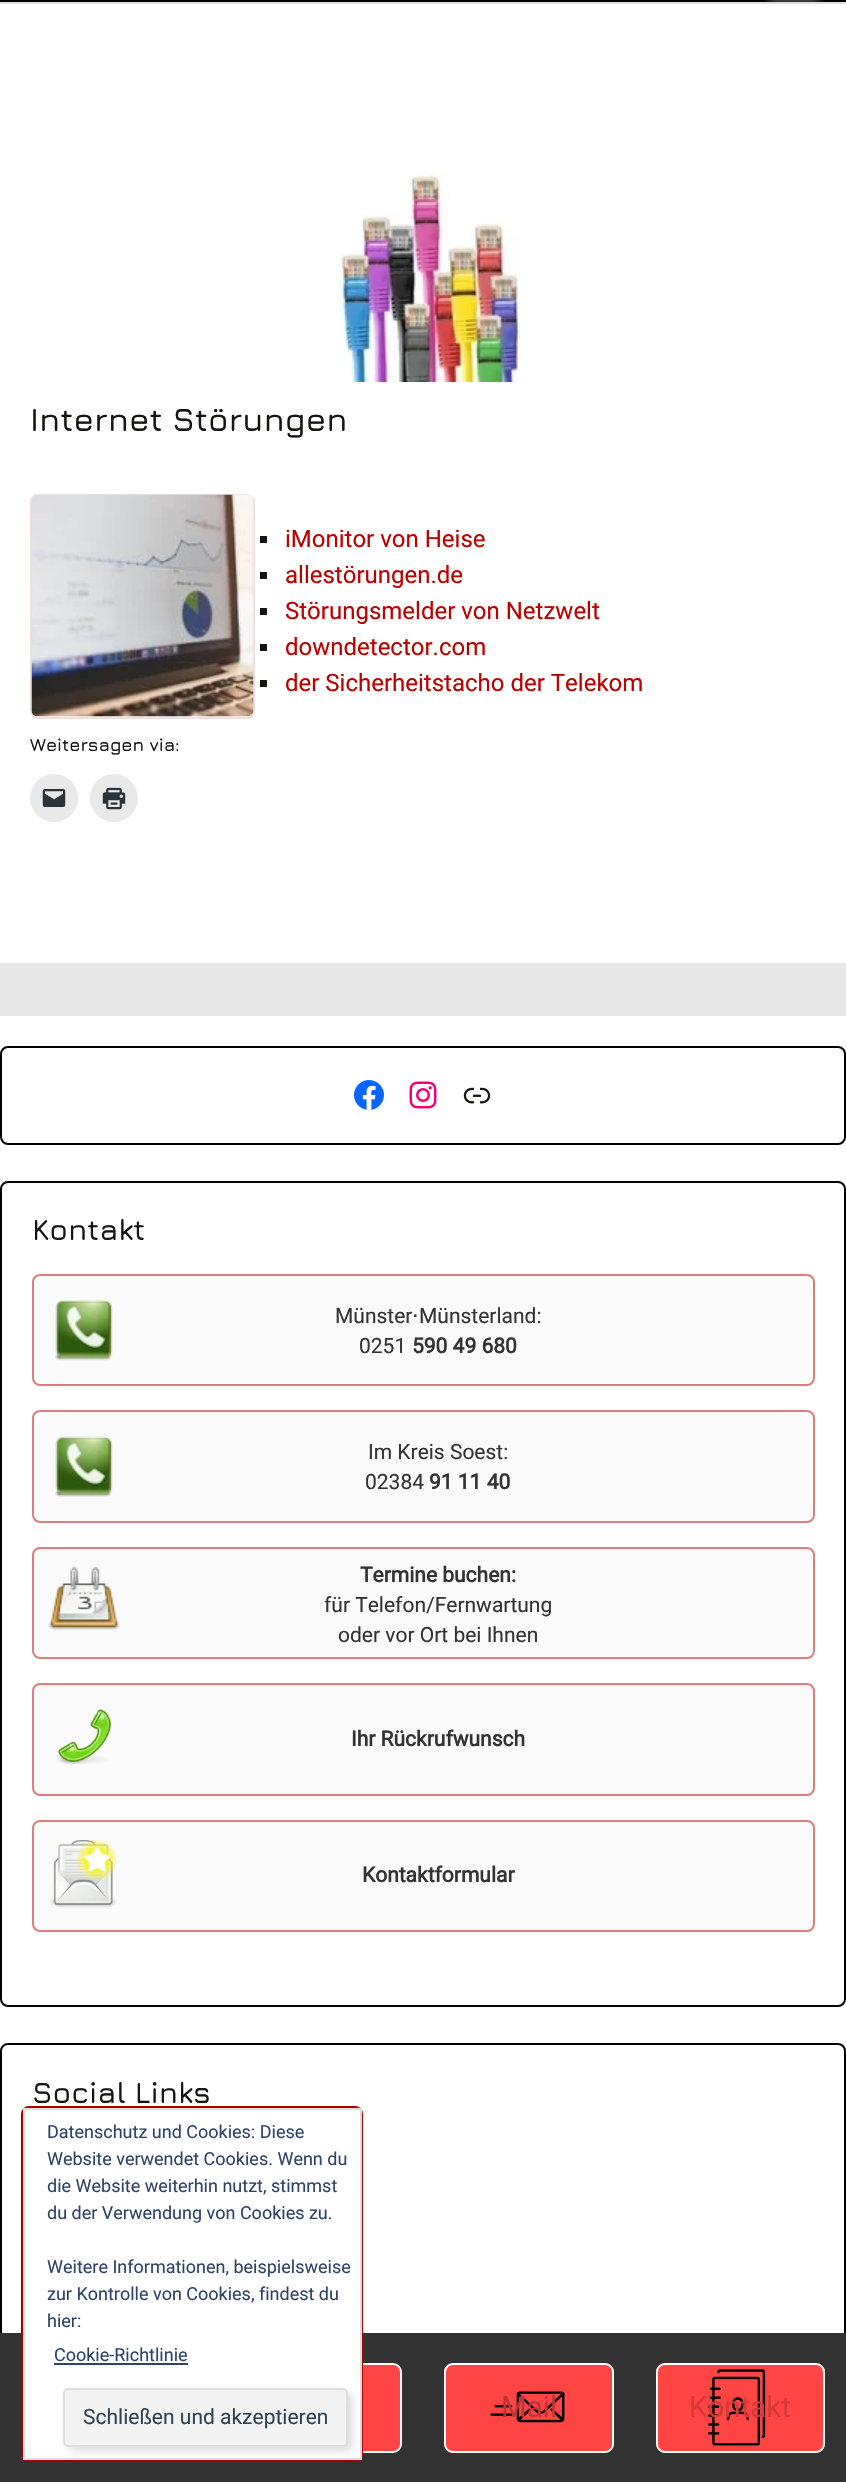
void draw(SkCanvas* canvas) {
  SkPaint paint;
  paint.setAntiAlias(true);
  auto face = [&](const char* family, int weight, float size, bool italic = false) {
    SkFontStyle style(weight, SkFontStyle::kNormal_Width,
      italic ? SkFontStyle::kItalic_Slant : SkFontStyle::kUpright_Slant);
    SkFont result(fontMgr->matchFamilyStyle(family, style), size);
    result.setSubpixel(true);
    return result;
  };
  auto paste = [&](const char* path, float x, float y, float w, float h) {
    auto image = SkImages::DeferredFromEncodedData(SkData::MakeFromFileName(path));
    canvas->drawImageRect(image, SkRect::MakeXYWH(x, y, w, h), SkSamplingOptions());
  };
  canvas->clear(0xffffffff);
  paint.setColor(0xff000000);
  canvas->drawRect(SkRect::MakeXYWH(0, 0, 846, 2), paint);
  paint.setColor(0xffdfdfdf);
  canvas->drawRect(SkRect::MakeXYWH(0, 2, 846, 2), paint);
  paint.setColor(0xabcccccc);
  paint.setMaskFilter(SkMaskFilter::MakeBlur(kNormal_SkBlurStyle, 4.5f));
  canvas->drawRoundRect(SkRect::MakeXYWH(767, -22, 54, 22), 8, 8, paint);
  paint.setMaskFilter(nullptr);
  paint.setColor(0xffe8e7e7);
  canvas->drawRect(SkRect::MakeXYWH(0, 963, 846, 53), paint);
  paste("img/1.png", 339, 170, 181, 212);
  paint.setStroke(true);
  paint.setStrokeWidth(2);
  paint.setColor(0xffefdfdf);
  canvas->drawRoundRect(SkRect::MakeXYWH(31, 495, 223, 223), 7, 7, paint);
  paste("img/2.png", 31, 494, 223, 223);
  paint.setStroke(false);
  {
    const struct { float x, y, w, h; SkColor color; } items[] = {
      {260, 536, 7, 7, 0xff141412},
      {260, 572, 7, 7, 0xff141412},
      {260, 608, 7, 7, 0xff141412},
      {260, 644, 7, 7, 0xff141412},
      {260, 680, 7, 7, 0xff141412},
    };
    for (auto [x, y, w, h, color] : items) {
      paint.setColor(color);
      canvas->drawRect(SkRect::MakeXYWH(x, y, w, h), paint);
    }
  }
  paint.setColor(0xffe9e9e9);
  canvas->drawCircle(54, 798, 24, paint);
  paste("img/3.png", 42, 789, 24, 18);
  canvas->drawCircle(114, 798, 24, paint);
  paste("img/4.png", 102, 787, 24, 23);
  paint.setStroke(true);
  paint.setColor(0xff000000);
  canvas->drawRoundRect(SkRect::MakeXYWH(1, 1047, 844, 97), 7, 7, paint);
  paste("img/5.png", 354, 1080, 30, 30);
  paste("img/6.png", 409, 1081, 28, 28);
  paste("img/7.png", 463, 1087, 28, 17);
  canvas->drawRoundRect(SkRect::MakeXYWH(1, 1182, 844, 824), 7, 7, paint);
  paint.setStroke(false);
  paint.setColor(0xfffafafa);
  canvas->drawRoundRect(SkRect::MakeXYWH(32, 1274, 783, 112), 8, 8, paint);
  paste("img/8.png", 55, 1300, 58, 61);
  paint.setStroke(true);
  paint.setColor(0xffdb7e7e);
  canvas->drawRoundRect(SkRect::MakeXYWH(33, 1275, 781, 110), 7, 7, paint);
  paint.setStroke(false);
  paint.setColor(0xfffafafa);
  canvas->drawRoundRect(SkRect::MakeXYWH(32, 1410, 783, 113), 8, 8, paint);
  paste("img/9.png", 55, 1436, 58, 61);
  paint.setStroke(true);
  paint.setColor(0xffdb7e7e);
  canvas->drawRoundRect(SkRect::MakeXYWH(33, 1411, 781, 111), 7, 7, paint);
  paint.setStroke(false);
  paint.setColor(0xfffafafa);
  canvas->drawRoundRect(SkRect::MakeXYWH(32, 1547, 783, 112), 8, 8, paint);
  paste("img/10.png", 48, 1566, 72, 64);
  paint.setStroke(true);
  paint.setColor(0xffdb7e7e);
  canvas->drawRoundRect(SkRect::MakeXYWH(33, 1548, 781, 110), 7, 7, paint);
  paint.setStroke(false);
  paint.setColor(0xfffafafa);
  canvas->drawRoundRect(SkRect::MakeXYWH(32, 1683, 783, 113), 8, 8, paint);
  paste("img/11.png", 56, 1709, 55, 55);
  paint.setStroke(true);
  paint.setColor(0xffdb7e7e);
  canvas->drawRoundRect(SkRect::MakeXYWH(33, 1684, 781, 111), 7, 7, paint);
  paint.setStroke(false);
  paint.setColor(0xfffafafa);
  canvas->drawRoundRect(SkRect::MakeXYWH(32, 1820, 783, 112), 8, 8, paint);
  paste("img/12.png", 50, 1839, 67, 69);
  paint.setStroke(true);
  paint.setColor(0xffdb7e7e);
  canvas->drawRoundRect(SkRect::MakeXYWH(33, 1821, 781, 110), 7, 7, paint);
  paint.setColor(0xff000000);
  canvas->drawRoundRect(SkRect::MakeXYWH(1, 2044, 844, 397), 7, 7, paint);
  paint.setStroke(false);
  paint.setColor(0xff333333);
  canvas->drawRect(SkRect::MakeXYWH(0, 2333, 846, 149), paint);
  paint.setColor(0xffff4444);
  canvas->drawRoundRect(SkRect::MakeXYWH(234, 2364, 167, 88), 8, 8, paint);
  paint.setStroke(true);
  paint.setColor(0xffffffff);
  canvas->drawRoundRect(SkRect::MakeXYWH(234, 2364, 167, 88), 8, 8, paint);
  paint.setStroke(false);
  paint.setColor(0xffff4444);
  canvas->drawRoundRect(SkRect::MakeXYWH(444, 2363, 170, 90), 9, 9, paint);
  paste("img/13.png", 490, 2391, 75, 32);
  paint.setStroke(true);
  paint.setColor(0xffffffff);
  canvas->drawRoundRect(SkRect::MakeXYWH(445, 2364, 168, 88), 8, 8, paint);
  paint.setStroke(false);
  paint.setColor(0xffff4444);
  canvas->drawRoundRect(SkRect::MakeXYWH(656, 2363, 169, 90), 9, 9, paint);
  paste("img/14.png", 708, 2369, 58, 77);
  paint.setStroke(true);
  paint.setColor(0xffffffff);
  canvas->drawRoundRect(SkRect::MakeXYWH(657, 2364, 167, 88), 8, 8, paint);
  paint.setColor(0xffaa0000);
  canvas->drawRoundRect(SkRect::MakeXYWH(22, 2107, 340, 354), 7, 7, paint);
  paint.setStroke(false);
  paint.setColor(0xffffffff);
  canvas->drawRect(SkRect::MakeXYWH(24, 2109, 337, 350), paint);
  paint.setStroke(true);
  paint.setColor(0xffdedede);
  canvas->drawRect(SkRect::MakeXYWH(24, 2109, 337, 350), paint);
  paint.setStroke(false);
  paint.setColor(0xff2e4467);
  canvas->drawRect(SkRect::MakeXYWH(54, 2363, 134, 2), paint);
  paint.setColor(0xabcccccc);
  paint.setMaskFilter(SkMaskFilter::MakeBlur(kNormal_SkBlurStyle, 4.5f));
  canvas->drawRoundRect(SkRect::MakeXYWH(68, 2393, 285, 58), 5, 5, paint);
  paint.setMaskFilter(nullptr);
  paint.setColor(0xfff3f3f3);
  canvas->drawRoundRect(SkRect::MakeXYWH(64, 2389, 283, 57), 4, 4, paint);
  paint.setStroke(true);
  paint.setColor(0xffdedede);
  canvas->drawRoundRect(SkRect::MakeXYWH(64, 2389, 283, 57), 4, 4, paint);
  auto f0 = face("Jura", 600, 33);
  paint.setStroke(false);
  paint.setColor(0xff141412);
  canvas->drawString("Internet Störungen", 30, 431, f0, paint);
  auto f1 = face("Roboto", 400, 24);
  paint.setColor(0xffbf0000);
  {
    const struct { const char* s; float x, y; } items[] = {
      {"iMonitor von Heise", 285, 547},
      {"allestörungen.de", 285, 583},
      {"Störungsmelder von Netzwelt", 285, 619},
      {"downdetector.com", 285, 655},
      {"der Sicherheitstacho der Telekom", 285, 691},
    };
    for (auto [s, x, y] : items) {
      canvas->drawString(s, x, y, f1, paint);
    }
  }
  auto f2 = face("Jura", 600, 18);
  paint.setColor(0xff141412);
  canvas->drawString("Weitersagen via:", 30, 751, f2, paint);
  auto f3 = face("Jura", 600, 30);
  canvas->drawString("Kontakt", 32, 1240, f3, paint);
  auto f4 = face("Roboto", 400, 21);
  paint.setColor(0xff333333);
  canvas->drawString("Münster", 335, 1323, f4, paint);
  auto f5 = face("DejaVu Sans", 400, 21);
  canvas->drawString("⋅", 412, 1323, f5, paint);
  canvas->drawString("Münsterland:", 419, 1323, f4, paint);
  canvas->drawString("0251", 359, 1353, f4, paint);
  auto f6 = face("Roboto", 700, 21);
  canvas->drawString("590 49 680", 412, 1353, f6, paint);
  canvas->drawString("Im Kreis Soest:", 368, 1459, f4, paint);
  canvas->drawString("02384", 365, 1489, f4, paint);
  canvas->drawString("91 11 40", 429, 1489, f6, paint);
  canvas->drawString("Termine buchen:", 360, 1582, f6, paint);
  canvas->drawString("für Telefon/Fernwartung", 324, 1612, f4, paint);
  canvas->drawString("oder vor Ort bei Ihnen", 338, 1642, f4, paint);
  canvas->drawString("Ihr Rückrufwunsch", 351, 1746, f6, paint);
  canvas->drawString("Kontaktformular", 362, 1882, f6, paint);
  paint.setColor(0xff141412);
  canvas->drawString("Social Links", 32, 2103, f3, paint);
  auto f7 = face("Roboto", 400, 29.5f);
  paint.setColor(0xffc23434);
  canvas->drawString("Mail", 501, 2417, f7, paint);
  paint.setColor(0xffd73939);
  canvas->drawString("Kontakt", 689, 2417, f7, paint);
  auto f8 = face("Roboto", 400, 18);
  paint.setColor(0xff2e4467);
  {
    const struct { const char* s; float x, y; } items[] = {
      {"Datenschutz und Cookies: Diese", 47, 2138},
      {"Website verwendet Cookies. Wenn du", 47, 2165},
      {"die Website weiterhin nutzt, stimmst", 47, 2192},
      {"du der Verwendung von Cookies zu.", 47, 2219},
      {"Weitere Informationen, beispielsweise", 47, 2273},
      {"zur Kontrolle von Cookies, findest du", 47, 2300},
      {"hier:", 47, 2327},
      {"Cookie-Richtlinie", 54, 2361},
    };
    for (auto [s, x, y] : items) {
      canvas->drawString(s, x, y, f8, paint);
    }
  }
  paint.setColor(0xff2e4453);
  canvas->drawString("Schließen und akzeptieren", 83, 2424, f4, paint);
}
